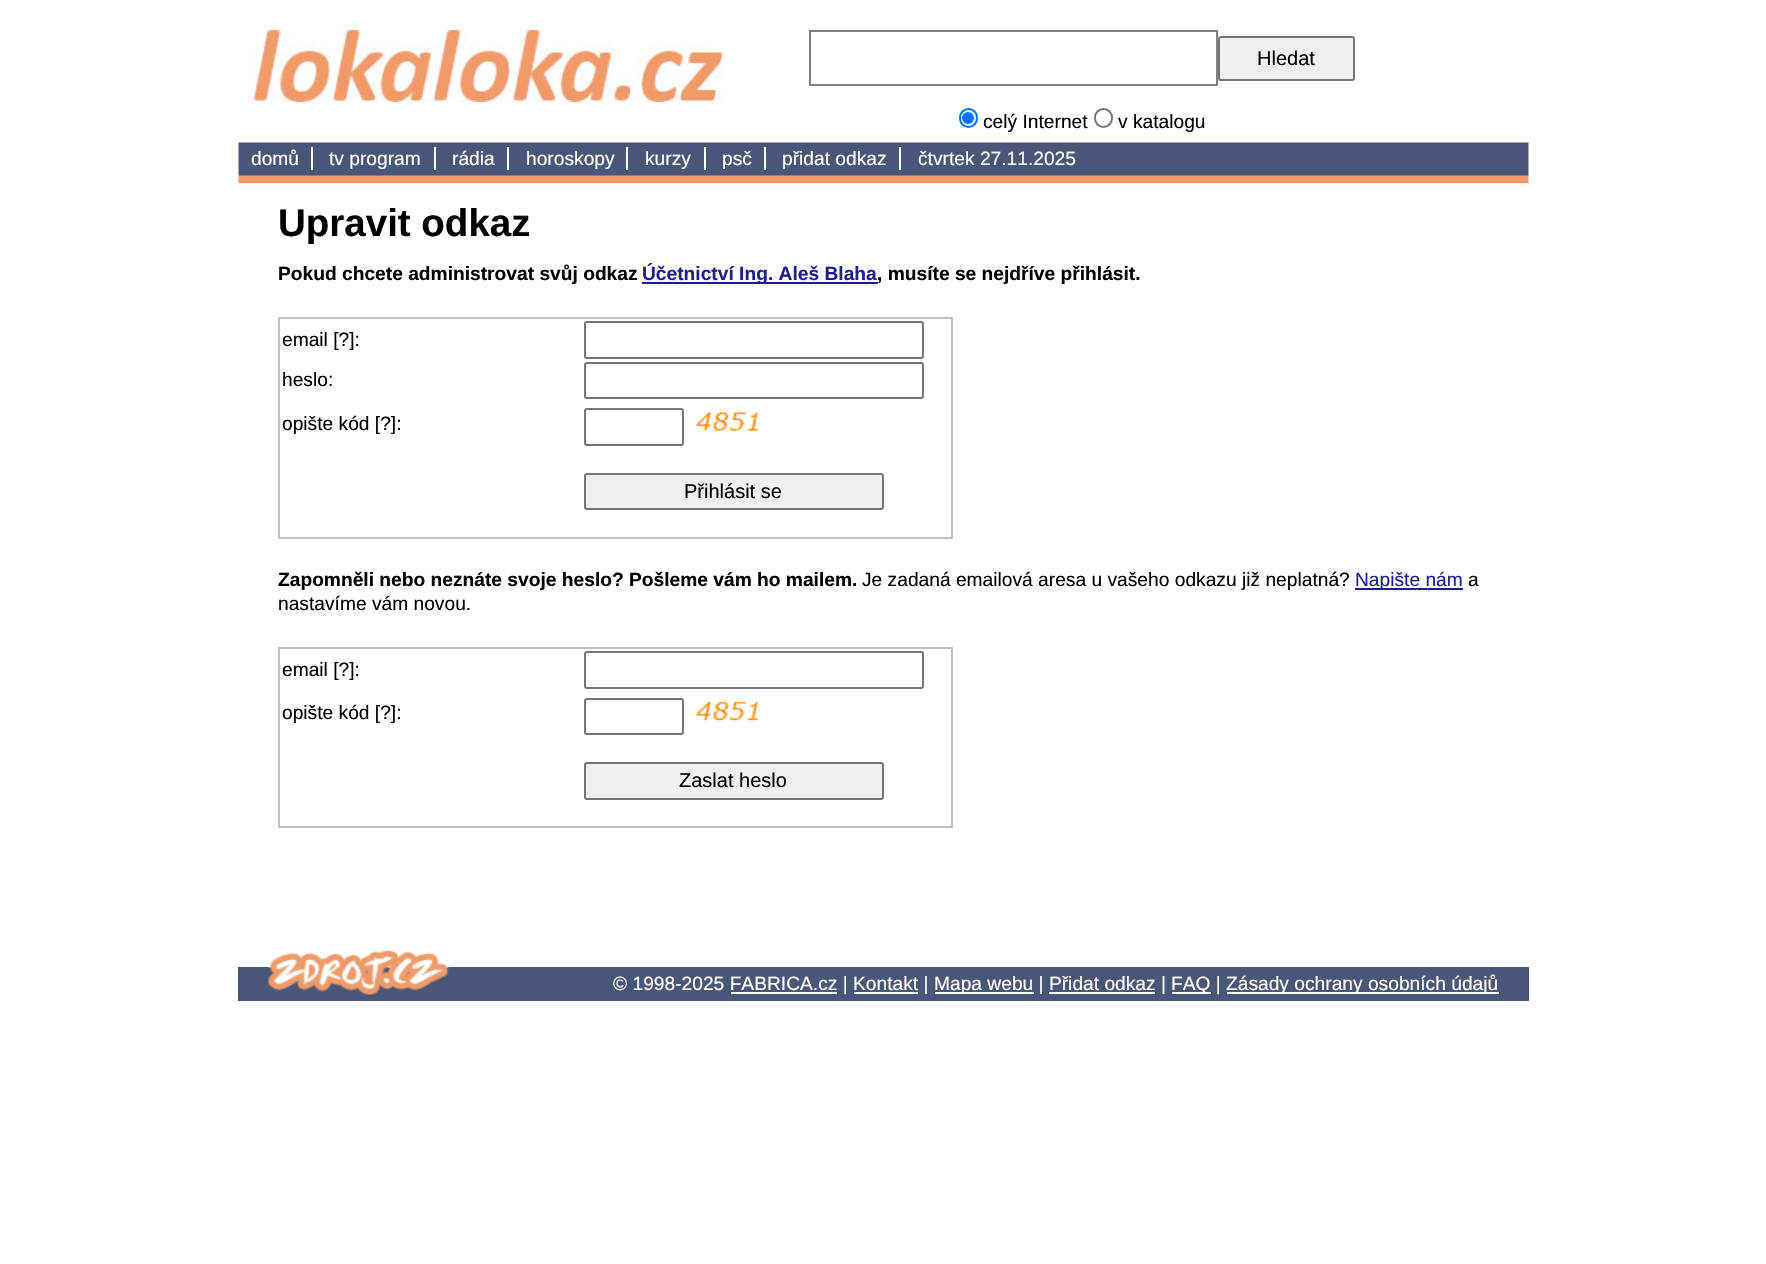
void draw(SkCanvas* canvas) {
  SkPaint paint;
  paint.setAntiAlias(true);
  auto face = [&](const char* family, int weight, float size, bool italic = false) {
    SkFontStyle style(weight, SkFontStyle::kNormal_Width,
      italic ? SkFontStyle::kItalic_Slant : SkFontStyle::kUpright_Slant);
    SkFont result(fontMgr->matchFamilyStyle(family, style), size);
    result.setSubpixel(true);
    return result;
  };
  auto paste = [&](const char* path, float x, float y, float w, float h) {
    auto image = SkImages::DeferredFromEncodedData(SkData::MakeFromFileName(path));
    canvas->drawImageRect(image, SkRect::MakeXYWH(x, y, w, h), SkSamplingOptions());
  };
  canvas->clear(0xffffffff);
  paste("img/1.png", 253, 30, 470, 72);
  paint.setStroke(true);
  paint.setStrokeWidth(2);
  paint.setColor(0xff808080);
  canvas->drawRect(SkRect::MakeXYWH(810, 31, 407, 54), paint);
  paint.setStroke(false);
  paint.setColor(0xffefefef);
  canvas->drawRoundRect(SkRect::MakeXYWH(1219, 37, 135, 43), 2, 2, paint);
  paint.setStroke(true);
  paint.setColor(0xff767676);
  canvas->drawRoundRect(SkRect::MakeXYWH(1219, 37, 135, 43), 2, 2, paint);
  paint.setColor(0xff0075ff);
  canvas->drawRoundRect(SkRect::MakeXYWH(960, 109, 17, 18), 8.5f, 8.5f, paint);
  paint.setStroke(false);
  canvas->drawCircle(968, 118, 6, paint);
  paint.setStroke(true);
  paint.setColor(0xff767676);
  canvas->drawRoundRect(SkRect::MakeXYWH(1095, 109, 17, 18), 8.5f, 8.5f, paint);
  paste("img/2.png", 238, 142, 1291, 41);
  paint.setStroke(false);
  {
    const struct { float x, y, w, h; SkColor color; } items[] = {
      {311, 147, 2, 23, 0xffffffff},
      {434, 147, 2, 23, 0xffffffff},
      {507, 147, 2, 23, 0xffffffff},
      {626, 147, 2, 23, 0xffffffff},
      {704, 147, 2, 23, 0xffffffff},
      {764, 147, 2, 23, 0xffffffff},
      {899, 147, 2, 23, 0xffffffff},
      {642, 282, 236, 2, 0xff1e1e8e},
    };
    for (auto [x, y, w, h, color] : items) {
      paint.setColor(color);
      canvas->drawRect(SkRect::MakeXYWH(x, y, w, h), paint);
    }
  }
  paint.setStroke(true);
  paint.setColor(0xffc0c0c0);
  canvas->drawRect(SkRect::MakeXYWH(279, 318, 673, 220), paint);
  paint.setColor(0xff767676);
  canvas->drawRoundRect(SkRect::MakeXYWH(585, 322, 338, 36), 2, 2, paint);
  canvas->drawRoundRect(SkRect::MakeXYWH(585, 363, 338, 35), 2, 2, paint);
  canvas->drawRoundRect(SkRect::MakeXYWH(585, 409, 98, 36), 2, 2, paint);
  paste("img/3.png", 695, 412, 63, 19);
  paint.setStroke(false);
  paint.setColor(0xffefefef);
  canvas->drawRoundRect(SkRect::MakeXYWH(585, 474, 298, 35), 2, 2, paint);
  paint.setStroke(true);
  paint.setColor(0xff767676);
  canvas->drawRoundRect(SkRect::MakeXYWH(585, 474, 298, 35), 2, 2, paint);
  paint.setStroke(false);
  paint.setColor(0xff1e1e8e);
  canvas->drawRect(SkRect::MakeXYWH(1355, 588, 108, 2), paint);
  paint.setStroke(true);
  paint.setColor(0xffc0c0c0);
  canvas->drawRect(SkRect::MakeXYWH(279, 648, 673, 179), paint);
  paint.setColor(0xff767676);
  canvas->drawRoundRect(SkRect::MakeXYWH(585, 652, 338, 36), 2, 2, paint);
  canvas->drawRoundRect(SkRect::MakeXYWH(585, 699, 98, 35), 2, 2, paint);
  paste("img/4.png", 695, 701, 63, 20);
  paint.setStroke(false);
  paint.setColor(0xffefefef);
  canvas->drawRoundRect(SkRect::MakeXYWH(585, 763, 298, 36), 2, 2, paint);
  paint.setStroke(true);
  paint.setColor(0xff767676);
  canvas->drawRoundRect(SkRect::MakeXYWH(585, 763, 298, 36), 2, 2, paint);
  paint.setStroke(false);
  paint.setColor(0xff495677);
  canvas->drawRect(SkRect::MakeXYWH(238, 967, 1291, 34), paint);
  paste("img/5.png", 268, 949, 181, 46);
  {
    const struct { float x, y, w, h; SkColor color; } items[] = {
      {935, 992, 99, 2, 0xffffffff},
      {1172, 992, 39, 2, 0xffffffff},
      {1227, 992, 272, 2, 0xffffffff},
      {731, 992, 106, 2, 0xffffffff},
      {854, 992, 64, 2, 0xffffffff},
      {1049, 992, 106, 2, 0xffffffff},
    };
    for (auto [x, y, w, h, color] : items) {
      paint.setColor(color);
      canvas->drawRect(SkRect::MakeXYWH(x, y, w, h), paint);
    }
  }
  auto f0 = face("Liberation Sans", 400, 20);
  paint.setColor(0xff000000);
  canvas->drawString("Hledat", 1257, 65, f0, paint);
  auto f1 = face("Liberation Sans", 400, 19.2f);
  canvas->drawString("celý Internet", 983, 128, f1, paint);
  canvas->drawString("v katalogu", 1118, 128, f1, paint);
  paint.setColor(0xffffffff);
  {
    const struct { const char* s; float x, y; } items[] = {
      {"domů", 251, 165},
      {"tv program", 329, 165},
      {"rádia", 452, 165},
      {"horoskopy", 526, 165},
      {"kurzy", 645, 165},
      {"psč", 722, 165},
      {"přidat odkaz", 782, 165},
      {"čtvrtek 27.11.2025", 918, 165},
    };
    for (auto [s, x, y] : items) {
      canvas->drawString(s, x, y, f1, paint);
    }
  }
  auto f2 = face("Liberation Sans", 700, 38.5f);
  paint.setColor(0xff000000);
  canvas->drawString("Upravit odkaz", 278, 236, f2, paint);
  auto f3 = face("Liberation Sans", 700, 19.2f);
  canvas->drawString("Pokud chcete administrovat svůj odkaz", 278, 280, f3, paint);
  paint.setColor(0xff1e1e8e);
  canvas->drawString("Účetnictví Ing. Aleš Blaha", 642, 280, f3, paint);
  paint.setColor(0xff000000);
  canvas->drawString(", musíte se nejdříve přihlásit.", 877, 280, f3, paint);
  {
    const struct { const char* s; float x, y; } items[] = {
      {"email [?]:", 282, 346},
      {"heslo:", 282, 386},
      {"opište kód [?]:", 282, 430},
    };
    for (auto [s, x, y] : items) {
      canvas->drawString(s, x, y, f1, paint);
    }
  }
  canvas->drawString("Přihlásit se", 684, 498, f0, paint);
  canvas->drawString("Zapomněli nebo neznáte svoje heslo? Pošleme vám ho mailem.", 278, 586, f3, paint);
  canvas->drawString("Je zadaná emailová aresa u vašeho odkazu již neplatná?", 862, 586, f1, paint);
  paint.setColor(0xff1e1e8e);
  canvas->drawString("Napište nám", 1355, 586, f1, paint);
  paint.setColor(0xff000000);
  {
    const struct { const char* s; float x, y; } items[] = {
      {"a", 1468, 586},
      {"nastavíme vám novou.", 278, 610},
      {"email [?]:", 282, 676},
      {"opište kód [?]:", 282, 719},
    };
    for (auto [s, x, y] : items) {
      canvas->drawString(s, x, y, f1, paint);
    }
  }
  canvas->drawString("Zaslat heslo", 679, 787, f0, paint);
  paint.setColor(0xffffffff);
  {
    const struct { const char* s; float x, y; } items[] = {
      {"© 1998-2025 FABRICA.cz | Kontakt |", 613, 990},
      {"Mapa webu | Přidat odkaz |", 934, 990},
      {"FAQ |", 1171, 990},
      {"Zásady ochrany osobních údajů", 1226, 990},
    };
    for (auto [s, x, y] : items) {
      canvas->drawString(s, x, y, f1, paint);
    }
  }
}
